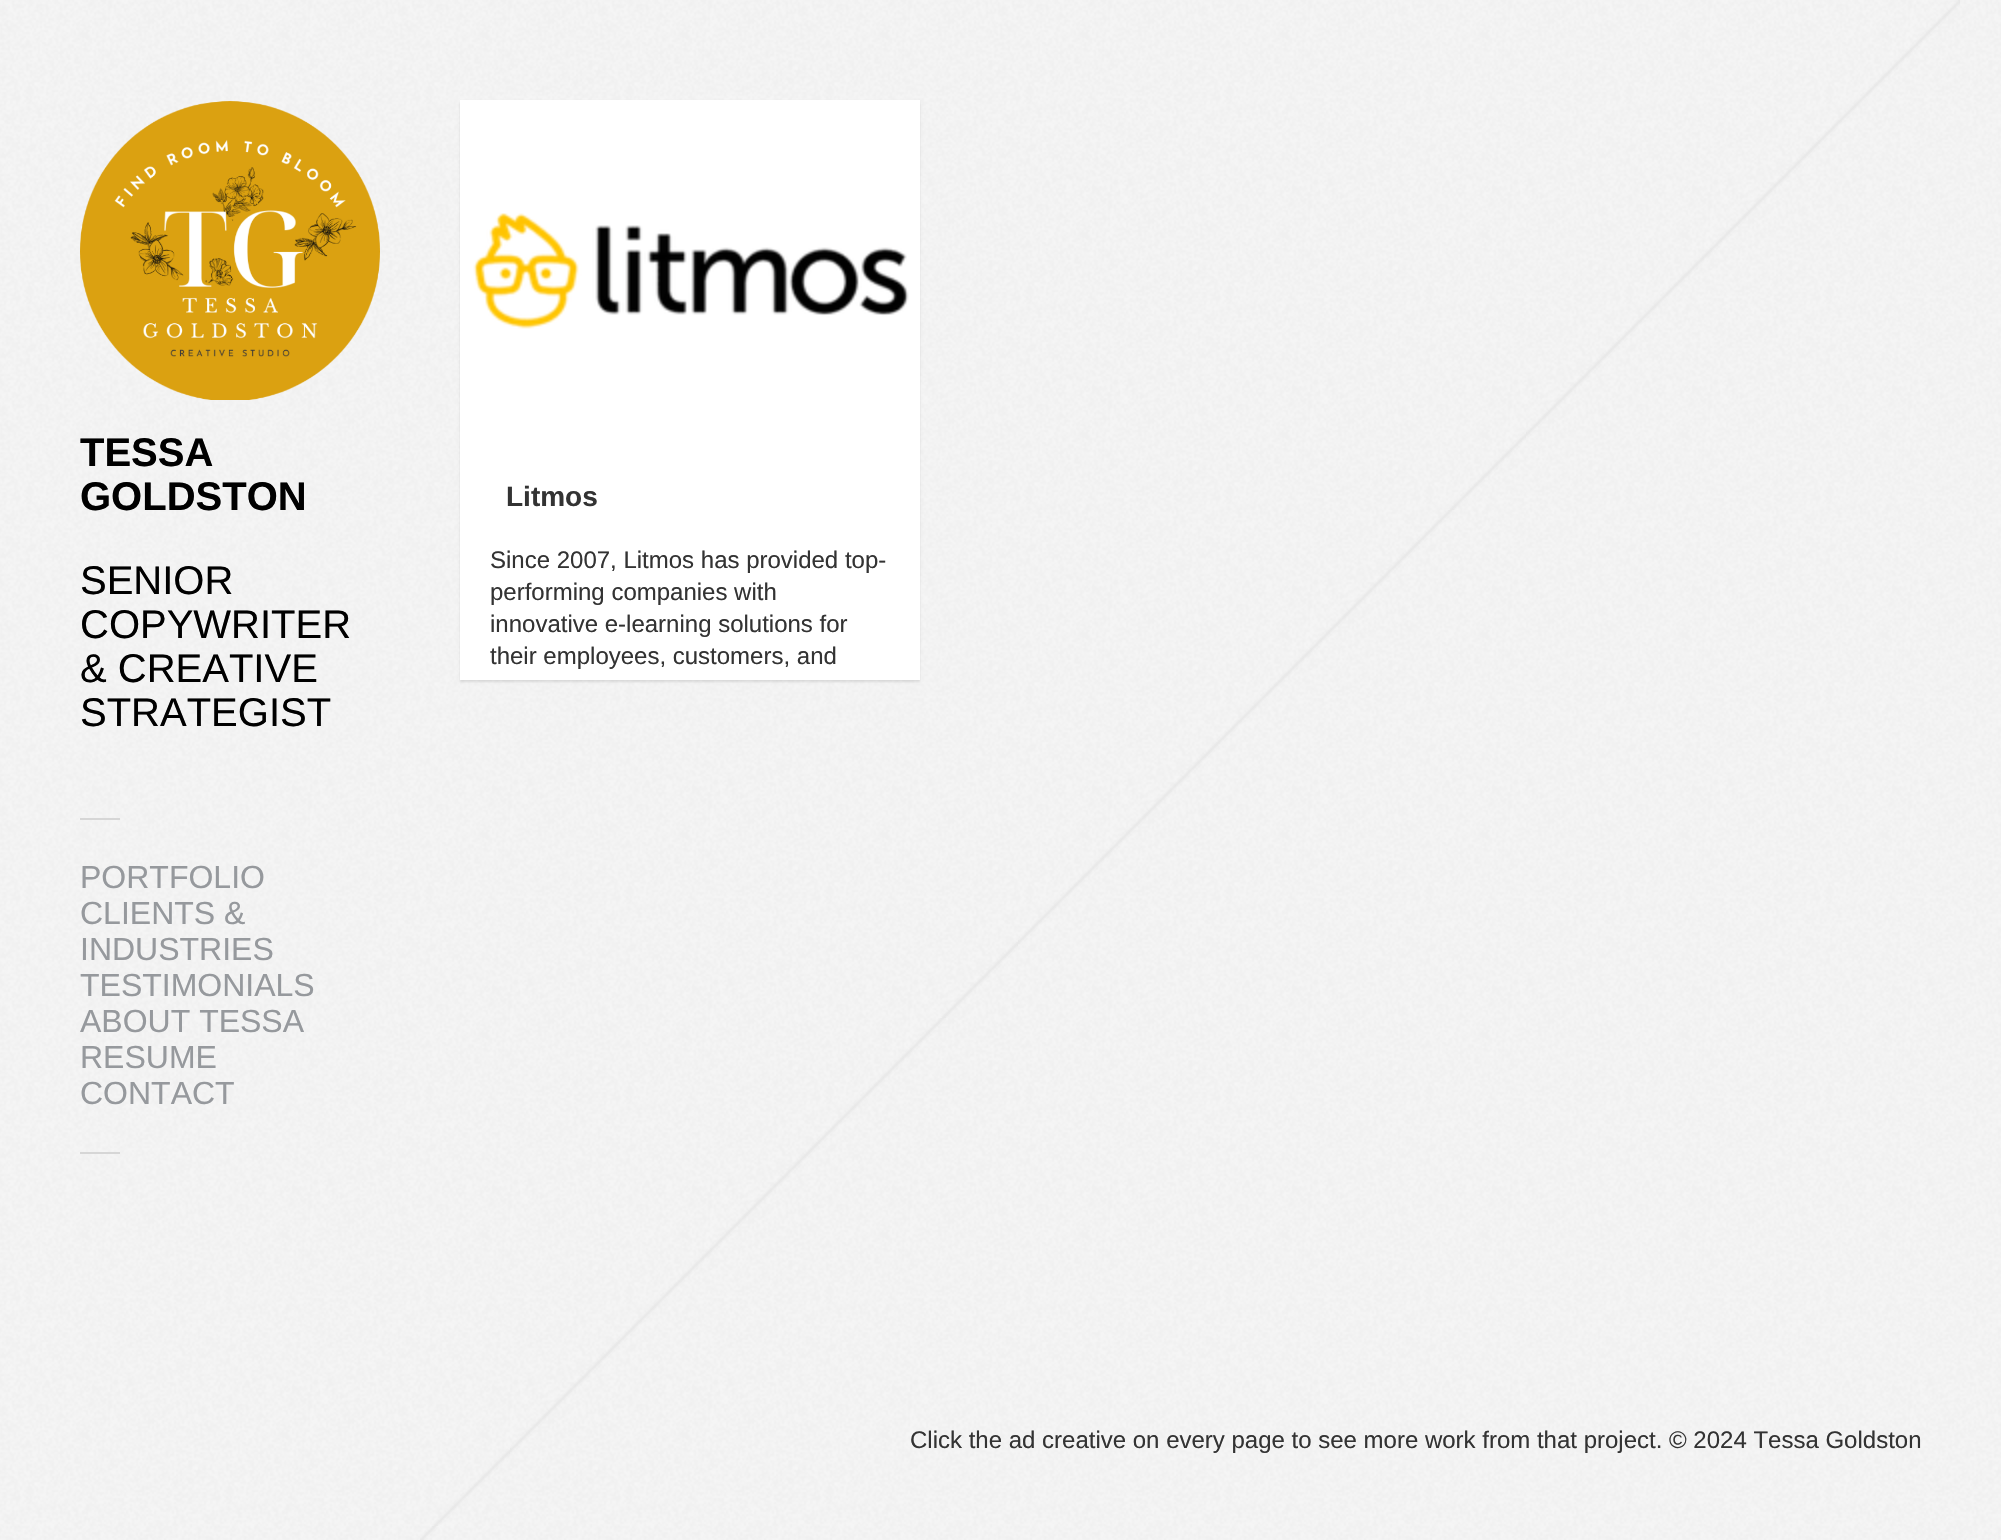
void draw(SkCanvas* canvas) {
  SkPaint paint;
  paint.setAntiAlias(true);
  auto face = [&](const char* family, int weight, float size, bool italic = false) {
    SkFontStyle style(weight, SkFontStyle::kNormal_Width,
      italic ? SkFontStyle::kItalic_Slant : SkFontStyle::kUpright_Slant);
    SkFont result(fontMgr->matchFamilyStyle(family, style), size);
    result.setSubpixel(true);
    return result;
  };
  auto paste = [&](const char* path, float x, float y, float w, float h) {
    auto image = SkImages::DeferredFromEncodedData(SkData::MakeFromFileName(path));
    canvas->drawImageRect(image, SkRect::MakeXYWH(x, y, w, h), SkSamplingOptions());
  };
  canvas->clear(0xffffffff);
  paste("img/1.png", 0, 0, 2001, 1540);
  paste("img/2.png", 420, 0, 1540, 1540);
  paste("img/3.png", 80, 101, 300, 299);
  paint.setColor(0xffd6d6d6);
  canvas->drawRect(SkRect::MakeXYWH(80, 818, 40, 2), paint);
  canvas->drawRect(SkRect::MakeXYWH(80, 1152, 40, 2), paint);
  paint.setColor(0x1a000000);
  paint.setMaskFilter(SkMaskFilter::MakeBlur(kNormal_SkBlurStyle, 1));
  canvas->drawRect(SkRect::MakeXYWH(460, 102, 460, 580), paint);
  paint.setMaskFilter(nullptr);
  paint.setColor(0xffffffff);
  canvas->drawRect(SkRect::MakeXYWH(460, 100, 460, 580), paint);
  paste("img/4.png", 473, 213, 436, 116);
  auto f0 = face("Liberation Sans", 700, 40);
  paint.setColor(0xff000000);
  canvas->drawString("TESSA", 80, 466, f0, paint);
  canvas->drawString("GOLDSTON", 80, 510, f0, paint);
  auto f1 = face("Liberation Sans", 400, 40);
  {
    const struct { const char* s; float x, y; } items[] = {
      {"SENIOR", 80, 594},
      {"COPYWRITER", 80, 638},
      {"& CREATIVE", 80, 682},
      {"STRATEGIST", 80, 726},
    };
    for (auto [s, x, y] : items) {
      canvas->drawString(s, x, y, f1, paint);
    }
  }
  auto f2 = face("Liberation Sans", 400, 32);
  paint.setColor(0xff96999d);
  {
    const struct { const char* s; float x, y; } items[] = {
      {"PORTFOLIO", 80, 888},
      {"CLIENTS &", 80, 924},
      {"INDUSTRIES", 80, 960},
      {"TESTIMONIALS", 80, 996},
      {"ABOUT TESSA", 80, 1032},
      {"RESUME", 80, 1068},
      {"CONTACT", 80, 1104},
    };
    for (auto [s, x, y] : items) {
      canvas->drawString(s, x, y, f2, paint);
    }
  }
  auto f3 = face("Liberation Sans", 700, 28);
  paint.setColor(0xff333333);
  canvas->drawString("Litmos", 506, 506, f3, paint);
  auto f4 = face("Liberation Sans", 400, 24);
  {
    const struct { const char* s; float x, y; } items[] = {
      {"Since 2007, Litmos has provided top-", 490, 568},
      {"performing companies with", 490, 600},
      {"innovative e-learning solutions for", 490, 632},
      {"their employees, customers, and", 490, 664},
      {"Click the ad creative on every page to see more work from that project. © 2024 Tessa Goldston", 910, 1448},
    };
    for (auto [s, x, y] : items) {
      canvas->drawString(s, x, y, f4, paint);
    }
  }
}
